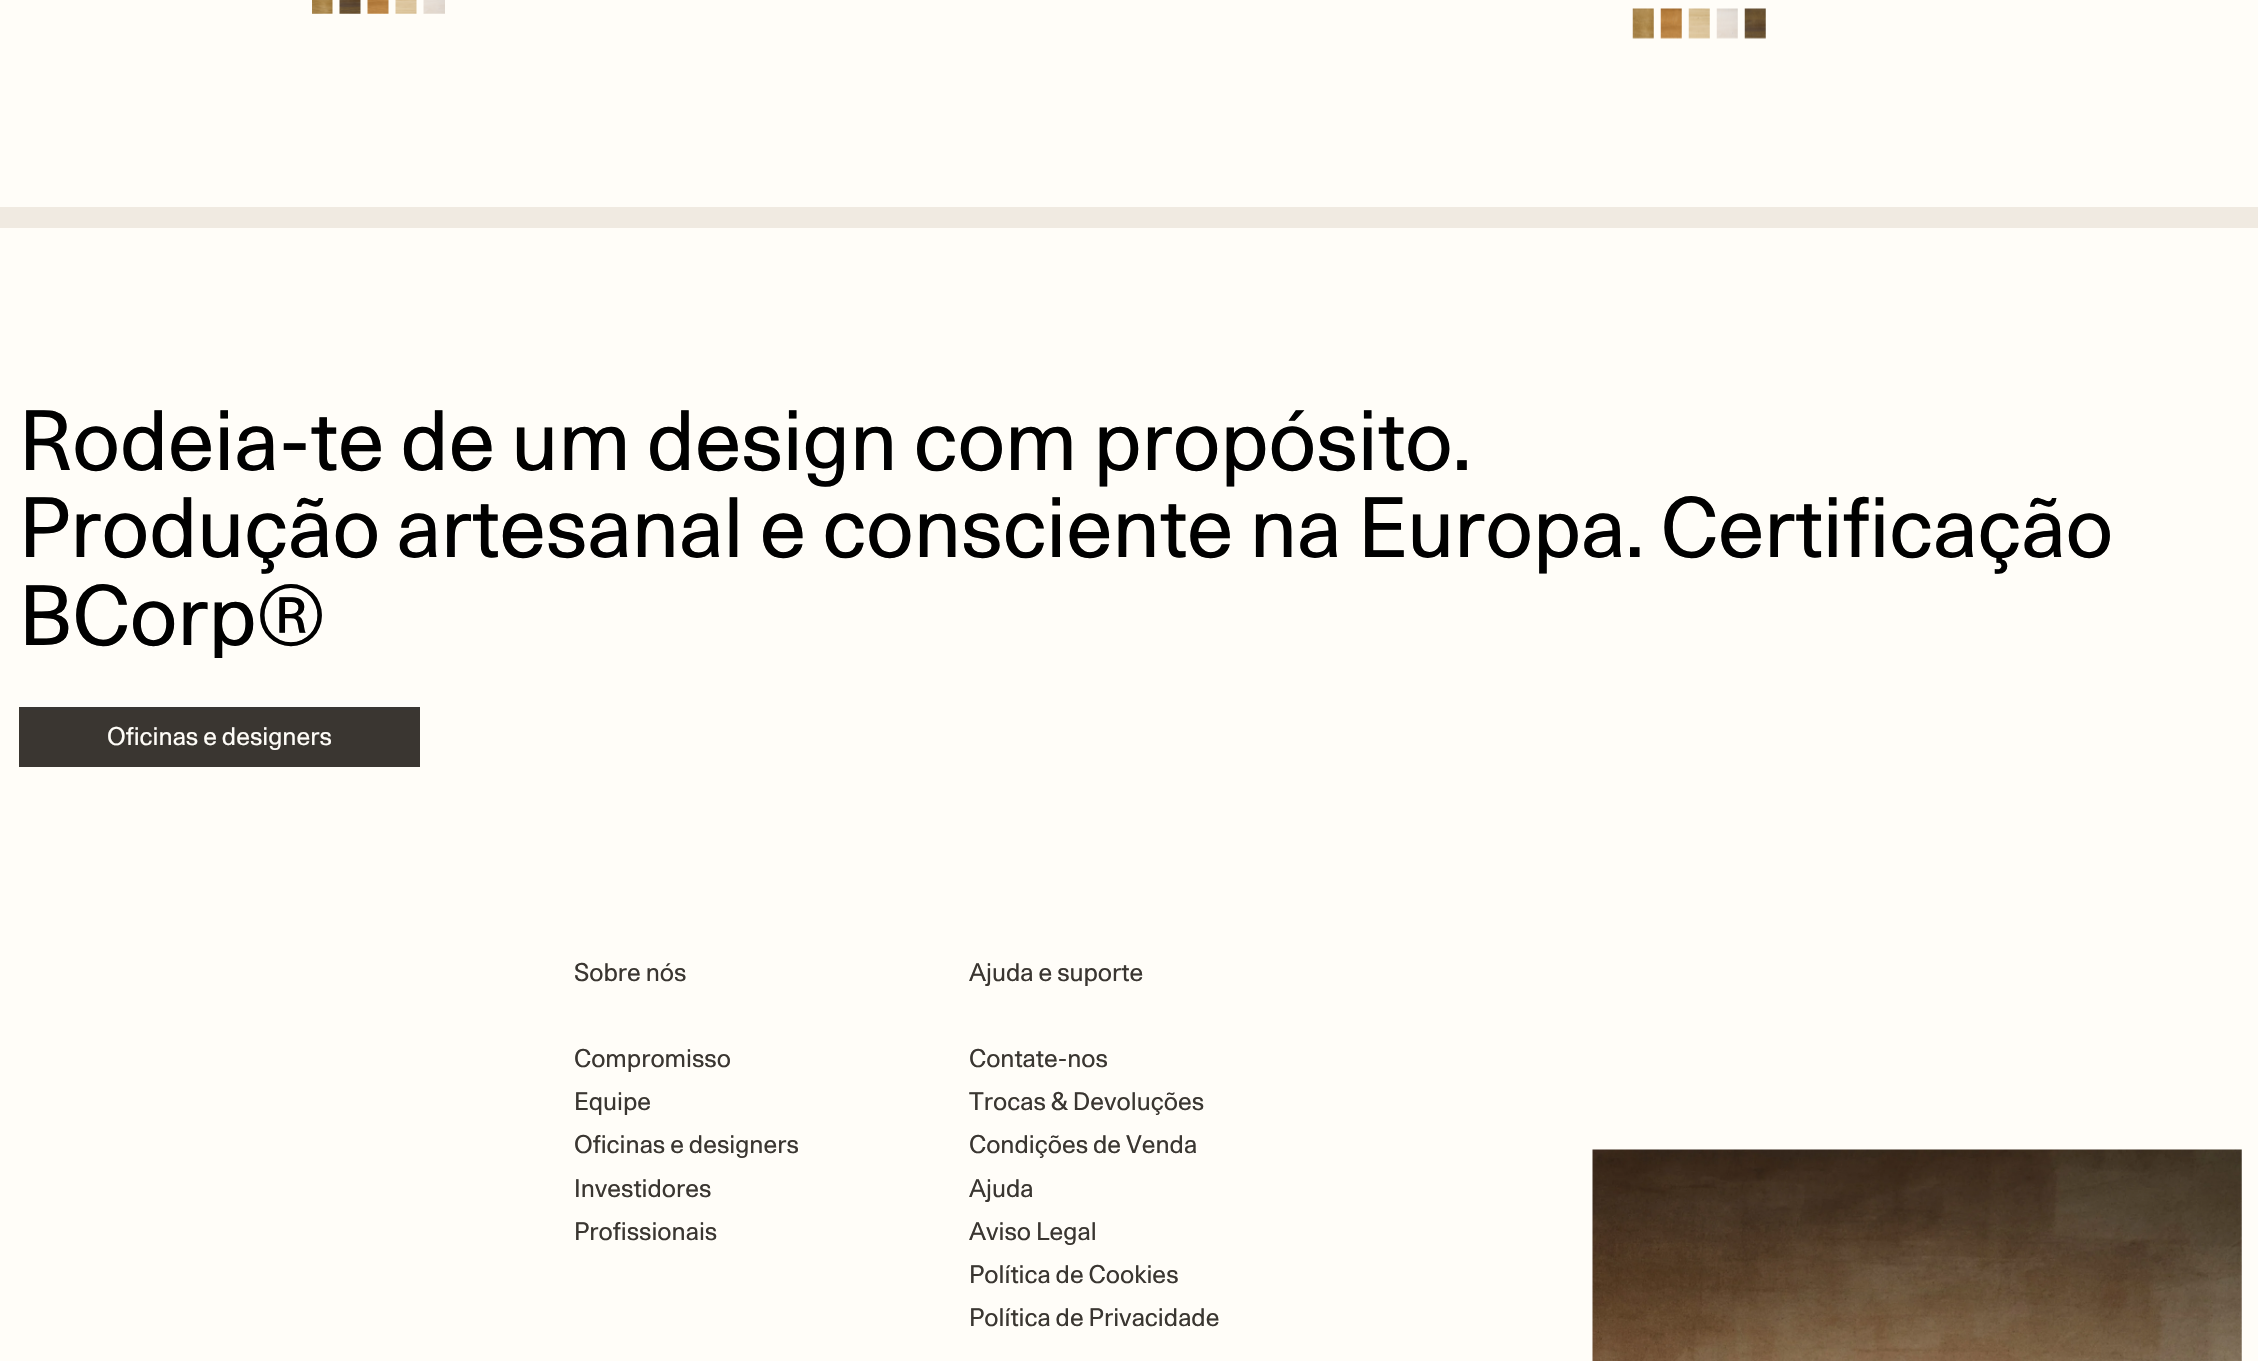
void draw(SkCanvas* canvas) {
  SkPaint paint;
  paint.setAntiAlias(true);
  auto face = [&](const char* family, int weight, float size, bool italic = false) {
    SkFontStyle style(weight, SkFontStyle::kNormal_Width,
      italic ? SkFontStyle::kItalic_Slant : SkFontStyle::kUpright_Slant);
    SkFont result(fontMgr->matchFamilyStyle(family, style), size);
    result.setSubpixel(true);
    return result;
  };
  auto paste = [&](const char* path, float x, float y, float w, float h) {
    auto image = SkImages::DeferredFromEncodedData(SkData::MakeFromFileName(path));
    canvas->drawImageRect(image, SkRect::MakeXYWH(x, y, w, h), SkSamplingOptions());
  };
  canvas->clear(0xfffffdf8);
  paste("img/1.png", 312, 0, 21, 14);
  paste("img/2.png", 339, 0, 22, 14);
  paste("img/3.png", 367, 0, 22, 14);
  paste("img/4.png", 395, 0, 22, 14);
  paste("img/5.png", 423, 0, 22, 14);
  paste("img/6.png", 1632, 8, 22, 31);
  paste("img/7.png", 1660, 8, 22, 31);
  paste("img/8.png", 1688, 8, 22, 31);
  paste("img/9.png", 1716, 8, 22, 31);
  paste("img/10.png", 1744, 8, 22, 31);
  paint.setColor(0xfff0eae1);
  canvas->drawRect(SkRect::MakeXYWH(0, 207, 2258, 21), paint);
  paint.setColor(0xff3a3631);
  canvas->drawRect(SkRect::MakeXYWH(19, 707, 401, 60), paint);
  paste("img/11.png", 1592, 1149, 650, 212);
  auto f0 = face("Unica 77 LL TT", 400, 82.25f);
  paint.setColor(0xff000000);
  canvas->drawString("Rodeia-te de um design com propósito.", 19, 470, f0, paint);
  canvas->drawString("Produção artesanal e consciente na Europa. Certificação", 19, 557, f0, paint);
  canvas->save();
  canvas->clipRect(SkRect::MakeXYWH(19, 571, 571, 87));
  canvas->drawString("BCorp®", 19, 645, f0, paint);
  canvas->restore();
  auto f1 = face("Unica 77 LL TT", 400, 24.5f);
  paint.setColor(0xfffffdf8);
  canvas->drawString("Oficinas e designers", 107, 745, f1, paint);
  paint.setColor(0xff3a3631);
  {
    const struct { const char* s; float x, y; } items[] = {
      {"Sobre nós", 574, 981},
      {"Compromisso", 574, 1067},
      {"Equipe", 574, 1110},
      {"Oficinas e designers", 574, 1153},
      {"Investidores", 574, 1197},
      {"Profissionais", 574, 1240},
      {"Ajuda e suporte", 969, 981},
      {"Contate-nos", 969, 1067},
      {"Trocas & Devoluções", 969, 1110},
      {"Condições de Venda", 969, 1153},
      {"Ajuda", 969, 1197},
      {"Aviso Legal", 969, 1240},
      {"Política de Cookies", 969, 1283},
      {"Política de Privacidade", 969, 1326},
    };
    for (auto [s, x, y] : items) {
      canvas->drawString(s, x, y, f1, paint);
    }
  }
}
